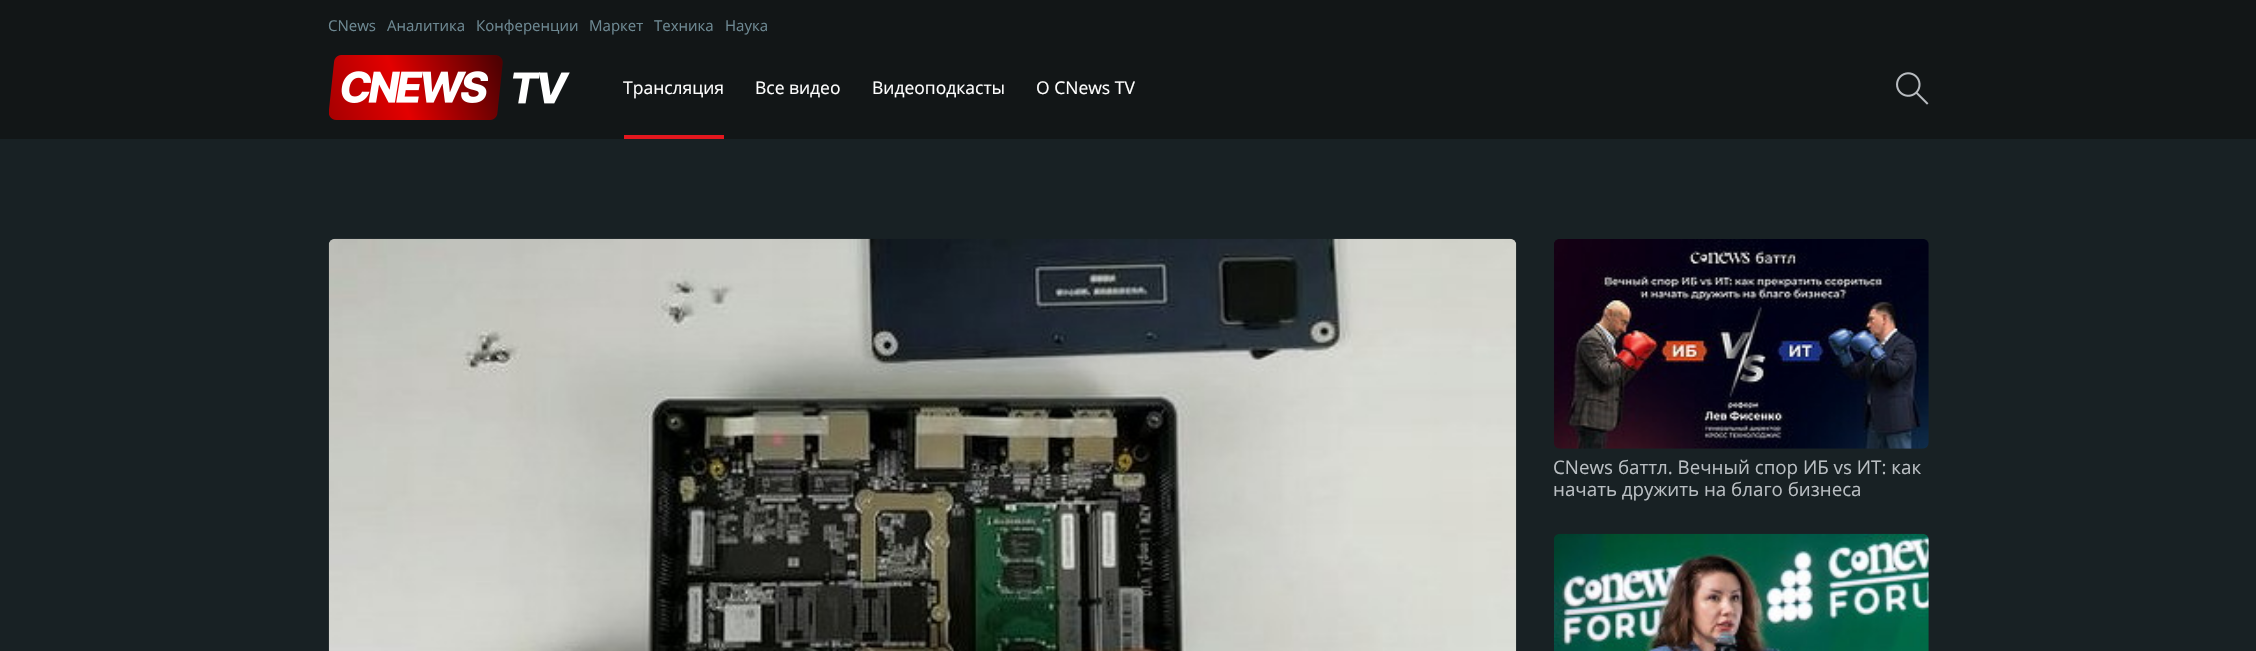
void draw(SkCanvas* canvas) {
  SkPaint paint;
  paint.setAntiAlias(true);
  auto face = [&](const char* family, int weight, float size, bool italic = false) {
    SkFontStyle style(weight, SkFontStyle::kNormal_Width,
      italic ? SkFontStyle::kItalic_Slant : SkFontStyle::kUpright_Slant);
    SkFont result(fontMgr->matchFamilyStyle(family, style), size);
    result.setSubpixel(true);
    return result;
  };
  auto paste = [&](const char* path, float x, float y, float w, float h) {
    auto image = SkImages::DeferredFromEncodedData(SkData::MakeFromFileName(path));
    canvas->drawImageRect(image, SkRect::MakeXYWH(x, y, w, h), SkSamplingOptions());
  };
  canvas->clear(0xff182124);
  paint.setColor(0xff121617);
  canvas->drawRect(SkRect::MakeXYWH(0, 0, 2256, 139), paint);
  paste("img/1.png", 329, 55, 241, 65);
  paint.setColor(0xffe4171e);
  canvas->drawRect(SkRect::MakeXYWH(624, 135, 100, 4), paint);
  paste("img/2.png", 1896, 72, 33, 33);
  paste("img/3.png", 328, 238, 1189, 413);
  paste("img/4.png", 1554, 239, 375, 210);
  paste("img/5.png", 1554, 533, 375, 118);
  auto f0 = face("Open Sans", 400, 15);
  paint.setColor(0xff6d8892);
  {
    const struct { const char* s; float x, y; } items[] = {
      {"CNews", 328, 31},
      {"Аналитика", 387, 31},
      {"Конференции", 476, 31},
      {"Маркет", 589, 31},
      {"Техника", 654, 31},
      {"Наука", 725, 31},
    };
    for (auto [s, x, y] : items) {
      canvas->drawString(s, x, y, f0, paint);
    }
  }
  auto f1 = face("Open Sans", 400, 17.5f);
  paint.setColor(0xffffffff);
  {
    const struct { const char* s; float x, y; } items[] = {
      {"Трансляция", 623, 94},
      {"Все видео", 755, 94},
      {"Видеоподкасты", 872, 94},
      {"О CNews TV", 1036, 94},
    };
    for (auto [s, x, y] : items) {
      canvas->drawString(s, x, y, f1, paint);
    }
  }
  auto f2 = face("Open Sans", 400, 18.75f);
  paint.setColor(0xffb9bec2);
  canvas->drawString("CNews баттл. Вечный спор ИБ vs ИТ: как", 1553, 474, f2, paint);
  canvas->drawString("начать дружить на благо бизнеса", 1553, 496, f2, paint);
}
